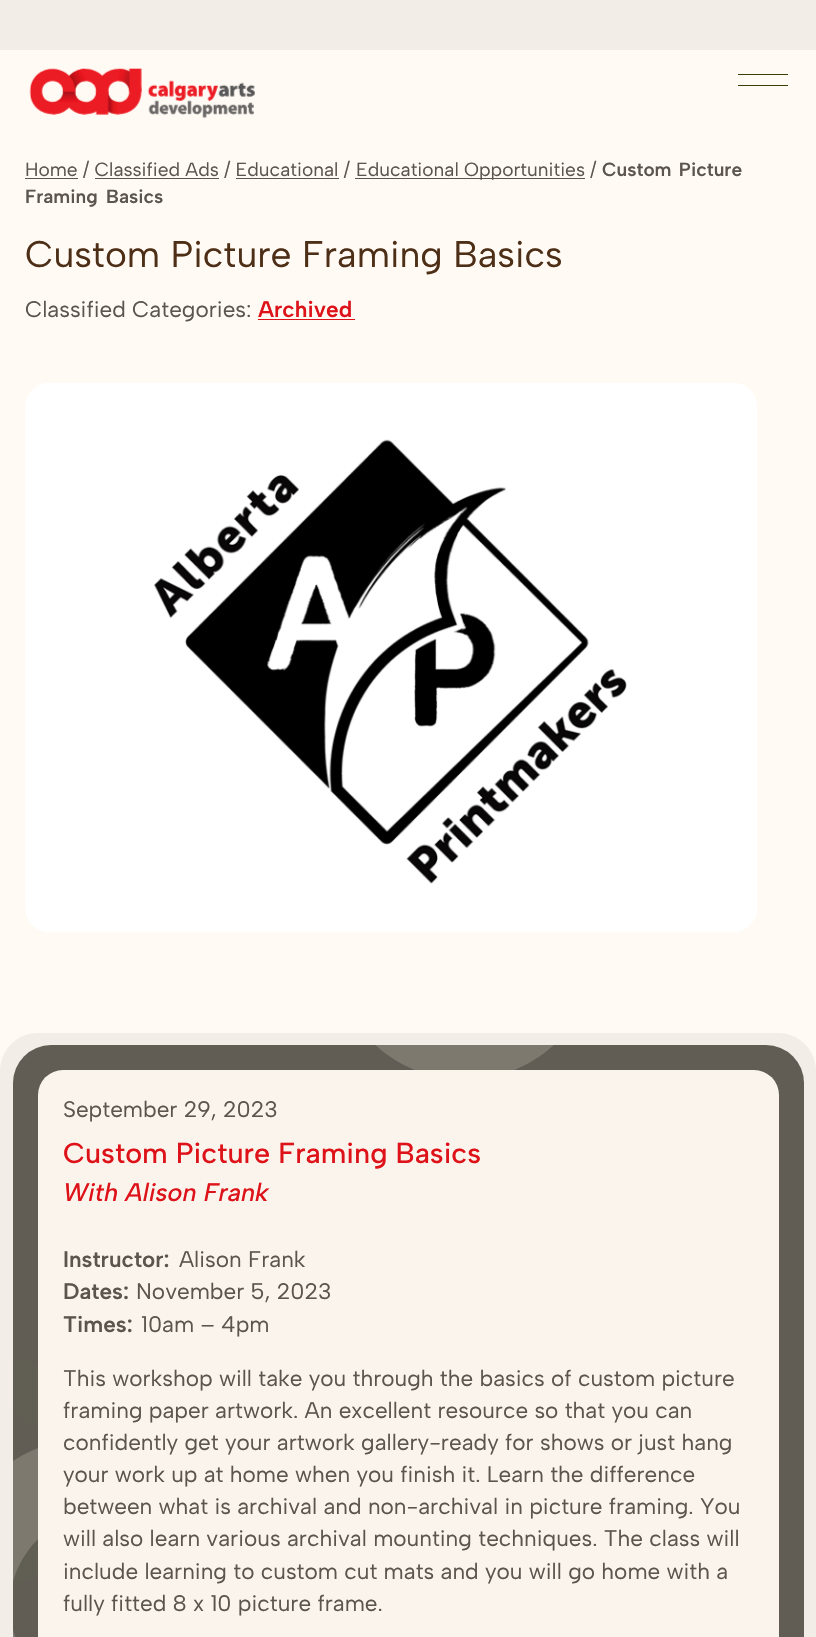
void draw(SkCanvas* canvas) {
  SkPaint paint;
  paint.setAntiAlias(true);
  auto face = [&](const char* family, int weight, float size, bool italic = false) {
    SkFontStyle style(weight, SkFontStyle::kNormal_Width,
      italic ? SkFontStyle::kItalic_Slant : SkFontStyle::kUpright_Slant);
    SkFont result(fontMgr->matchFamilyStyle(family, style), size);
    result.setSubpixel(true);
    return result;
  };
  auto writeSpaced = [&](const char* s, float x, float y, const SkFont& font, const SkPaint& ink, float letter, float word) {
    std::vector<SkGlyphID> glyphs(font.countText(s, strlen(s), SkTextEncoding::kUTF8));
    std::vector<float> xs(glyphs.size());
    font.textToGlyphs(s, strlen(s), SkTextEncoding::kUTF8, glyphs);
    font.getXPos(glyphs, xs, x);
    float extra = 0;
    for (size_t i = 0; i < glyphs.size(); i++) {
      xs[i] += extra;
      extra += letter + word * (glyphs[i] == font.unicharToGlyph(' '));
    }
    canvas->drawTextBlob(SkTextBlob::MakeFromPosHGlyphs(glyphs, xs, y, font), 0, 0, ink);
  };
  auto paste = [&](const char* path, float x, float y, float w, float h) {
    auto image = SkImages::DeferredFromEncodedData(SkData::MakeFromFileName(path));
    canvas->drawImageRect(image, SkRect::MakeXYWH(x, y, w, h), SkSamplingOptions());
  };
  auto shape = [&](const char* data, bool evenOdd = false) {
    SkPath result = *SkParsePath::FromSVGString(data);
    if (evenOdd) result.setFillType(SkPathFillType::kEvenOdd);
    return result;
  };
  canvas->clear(0xfffffaf4);
  paint.setColor(0xfff2eee7);
  canvas->drawRect(SkRect::MakeXYWH(0, 0, 816, 50), paint);
  paste("img/1.png", 29, 68, 226, 50);
  {
    const struct { float x, y, w, h; SkColor color; } items[] = {
      {738, 74, 50, 1, 0xff3e3c07},
      {738, 85, 50, 1, 0xff3e3c07},
      {25, 178, 53, 1, 0xff5b554e},
      {95, 178, 124, 1, 0xff5b554e},
      {236, 178, 103, 1, 0xff5b554e},
      {355, 178, 230, 1, 0xff5b554e},
      {258, 319, 97, 1, 0xffde1219},
    };
    for (auto [x, y, w, h, color] : items) {
      paint.setColor(color);
      canvas->drawRect(SkRect::MakeXYWH(x, y, w, h), paint);
    }
  }
  paste("img/2.png", 25, 383, 732, 549);
  paint.setColor(0xfff2eee7);
  canvas->drawPath(shape("M38 1033H778C799 1033 816 1050 816 1071V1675H0V1071C0 1050 17 1033 38 1033Z"), paint);
  paint.setColor(0xff615d54);
  canvas->drawRoundRect(SkRect::MakeXYWH(13, 1045, 791, 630), 38, 38, paint);
  paste("img/3.png", 13, 1045, 541, 592);
  paint.setColor(0xfffaf4ec);
  canvas->drawRoundRect(SkRect::MakeXYWH(38, 1070, 741, 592), 25, 25, paint);
  auto f0 = face("Albert Sans", 400, 19.1f);
  paint.setColor(0xff5b554e);
  canvas->drawString("Home / Classified Ads / Educational /", 25, 176, f0, paint);
  canvas->drawString("Educational Opportunities /", 356, 176, f0, paint);
  auto f1 = face("Albert Sans", 600, 19.1f);
  writeSpaced("Custom Picture", 602, 176, f1, paint, 0, 2);
  writeSpaced("Framing Basics", 25, 203, f1, paint, 0, 3);
  auto f2 = face("Albert Sans", 400, 37.1f);
  paint.setColor(0xff4d2e16);
  canvas->drawString("Custom Picture Framing Basics", 25, 267, f2, paint);
  auto f3 = face("Albert Sans", 400, 22.5f);
  paint.setColor(0xff5b554e);
  canvas->drawString("Classified Categories:", 25, 317, f3, paint);
  auto f4 = face("Albert Sans", 600, 22.5f);
  paint.setColor(0xffde1219);
  canvas->drawString("Archived", 258, 317, f4, paint);
  paint.setColor(0xff5b554e);
  canvas->drawString("September 29, 2023", 63, 1117, f3, paint);
  auto f5 = face("Albert Sans", 500, 28.75f);
  paint.setColor(0xffde1219);
  canvas->drawString("Custom Picture Framing Basics", 63, 1163, f5, paint);
  auto f6 = face("Albert Sans", 500, 25.25f, true);
  canvas->drawString("With Alison Frank", 63, 1201, f6, paint);
  paint.setColor(0xff5b554e);
  canvas->drawString("Instructor:", 63, 1267, f4, paint);
  canvas->drawString("Alison Frank", 179, 1267, f3, paint);
  canvas->drawString("Dates:", 63, 1299, f4, paint);
  canvas->drawString("November 5, 2023", 136, 1299, f3, paint);
  canvas->drawString("Times:", 63, 1332, f4, paint);
  {
    const struct { const char* s; float x, y; } items[] = {
      {"10am – 4pm", 141, 1332},
      {"This workshop will take you through the basics of custom picture", 63, 1386},
      {"framing paper artwork. An excellent resource so that you can", 63, 1418},
      {"confidently get your artwork gallery-ready for shows or just hang", 63, 1450},
      {"your work up at home when you finish it. Learn the difference", 63, 1482},
      {"between what is archival and non-archival in picture framing. You", 63, 1514},
      {"will also learn various archival mounting techniques. The class will", 63, 1546},
      {"include learning to custom cut mats and you will go home with a", 63, 1579},
      {"fully fitted 8 x 10 picture frame.", 63, 1611},
    };
    for (auto [s, x, y] : items) {
      canvas->drawString(s, x, y, f3, paint);
    }
  }
}
